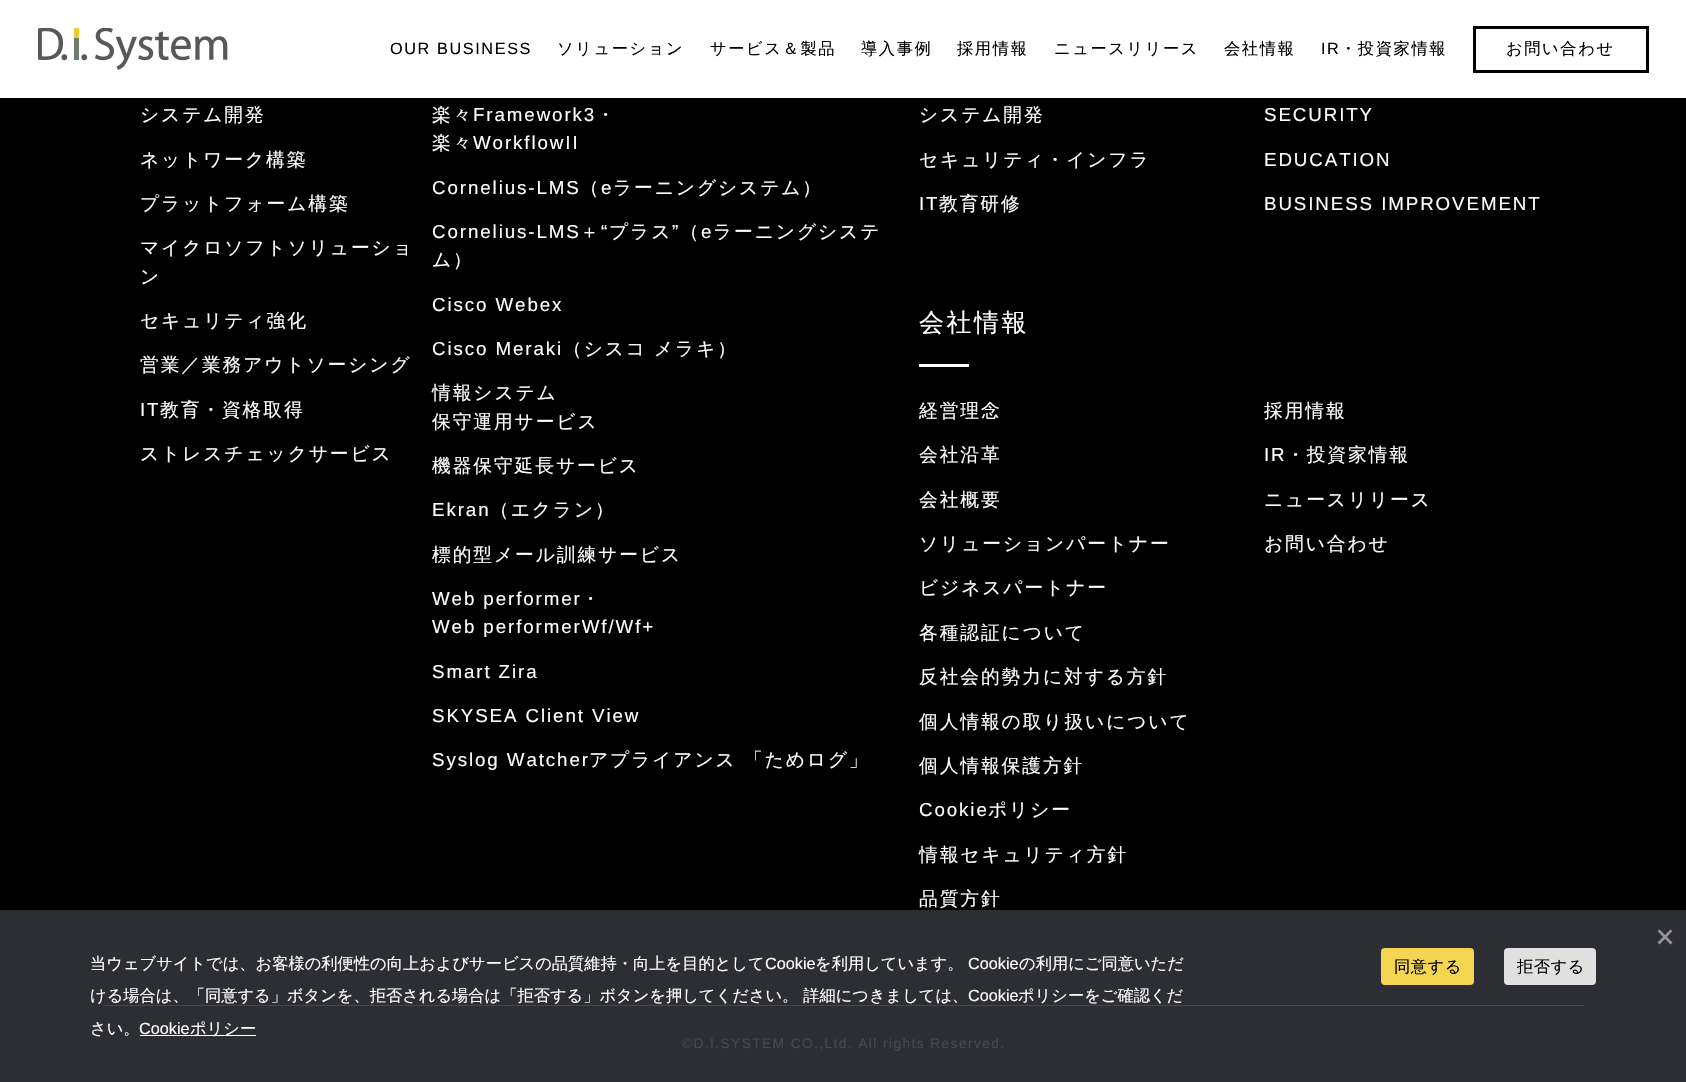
void draw(SkCanvas* canvas) {
  SkPaint paint;
  paint.setAntiAlias(true);
  auto face = [&](const char* family, int weight, float size, bool italic = false) {
    SkFontStyle style(weight, SkFontStyle::kNormal_Width,
      italic ? SkFontStyle::kItalic_Slant : SkFontStyle::kUpright_Slant);
    SkFont result(fontMgr->matchFamilyStyle(family, style), size);
    result.setSubpixel(true);
    return result;
  };
  auto writeSpaced = [&](const char* s, float x, float y, const SkFont& font, const SkPaint& ink, float letter, float word) {
    std::vector<SkGlyphID> glyphs(font.countText(s, strlen(s), SkTextEncoding::kUTF8));
    std::vector<float> xs(glyphs.size());
    font.textToGlyphs(s, strlen(s), SkTextEncoding::kUTF8, glyphs);
    font.getXPos(glyphs, xs, x);
    float extra = 0;
    for (size_t i = 0; i < glyphs.size(); i++) {
      xs[i] += extra;
      extra += letter + word * (glyphs[i] == font.unicharToGlyph(' '));
    }
    canvas->drawTextBlob(SkTextBlob::MakeFromPosHGlyphs(glyphs, xs, y, font), 0, 0, ink);
  };
  auto paste = [&](const char* path, float x, float y, float w, float h) {
    auto image = SkImages::DeferredFromEncodedData(SkData::MakeFromFileName(path));
    canvas->drawImageRect(image, SkRect::MakeXYWH(x, y, w, h), SkSamplingOptions());
  };
  auto shape = [&](const char* data, bool evenOdd = false) {
    SkPath result = *SkParsePath::FromSVGString(data);
    if (evenOdd) result.setFillType(SkPathFillType::kEvenOdd);
    return result;
  };
  canvas->clear(0xff000000);
  paint.setColor(0xffffffff);
  canvas->drawRect(SkRect::MakeXYWH(0, 0, 1686, 98), paint);
  paste("img/1.png", 38, 28, 190, 42);
  paint.setStroke(true);
  paint.setStrokeWidth(3);
  paint.setColor(0xff000000);
  canvas->drawRect(SkRect::MakeXYWH(1474.5f, 27.5f, 173, 44), paint);
  paint.setStroke(false);
  {
    const struct { float x, y, w, h; SkColor color; } items[] = {
      {0, 910, 1686, 172, 0xff2d2d34},
      {919, 364, 50, 3, 0xffffffff},
      {103, 1005, 1481, 1, 0xff47474e},
    };
    for (auto [x, y, w, h, color] : items) {
      paint.setColor(color);
      canvas->drawRect(SkRect::MakeXYWH(x, y, w, h), paint);
    }
  }
  paint.setColor(0xff96969a);
  canvas->drawPath(shape("M1670.5 929.5L1672.5 931L1659.5 944.5L1657.5 942.5Z"), paint);
  canvas->drawPath(shape("M1657.5 931L1659.5 929.5L1672.5 942.5L1670.5 944.5Z"), paint);
  paint.setColor(0xffffffff);
  canvas->drawRect(SkRect::MakeXYWH(140, 1035, 116, 1), paint);
  paint.setColor(0xfff3d552);
  canvas->drawRoundRect(SkRect::MakeXYWH(1381, 948, 93, 37), 4, 4, paint);
  paint.setColor(0xffe0e0e0);
  canvas->drawRoundRect(SkRect::MakeXYWH(1504, 948, 92, 37), 4, 4, paint);
  auto f0 = face("Liberation Sans", 400, 16.25f);
  paint.setColor(0xff000000);
  writeSpaced("OUR BUSINESS", 390, 54, f0, paint, 1.6f, 0);
  auto f1 = face("WenQuanYi Zen Hei", 500, 16.25f);
  {
    const struct { const char* s; float x, y; } items[] = {
      {"ソリューション", 557, 54},
      {"サービス＆製品", 710, 54},
      {"導入事例", 861, 54},
      {"採用情報", 957, 54},
      {"ニュースリリース", 1054, 54},
      {"会社情報", 1224, 54},
    };
    for (auto [s, x, y] : items) {
      writeSpaced(s, x, y, f1, paint, 1.6f, 0);
    }
  }
  writeSpaced("IR", 1321, 54, f0, paint, 1.6f, 0);
  writeSpaced("・投資家情報", 1340, 54, f1, paint, 1.6f, 0);
  writeSpaced("お問い合わせ", 1506, 54, f1, paint, 1.6f, 0);
  auto f2 = face("WenQuanYi Zen Hei", 500, 18.75f);
  paint.setColor(0xffffffff);
  {
    const struct { const char* s; float x, y; } items[] = {
      {"システム開発", 140, 121},
      {"ネットワーク構築", 140, 166},
      {"プラットフォーム構築", 140, 210},
      {"マイクロソフトソリューショ", 140, 254},
      {"ン", 140, 283},
      {"セキュリティ強化", 140, 327},
      {"営業／業務アウトソーシング", 140, 371},
    };
    for (auto [s, x, y] : items) {
      writeSpaced(s, x, y, f2, paint, 1.9f, 0);
    }
  }
  auto f3 = face("Liberation Sans", 400, 18.75f);
  writeSpaced("IT", 140, 416, f3, paint, 1.9f, 0);
  {
    const struct { const char* s; float x, y; } items[] = {
      {"教育・資格取得", 160, 416},
      {"ストレスチェックサービス", 140, 460},
      {"楽々", 432, 121},
    };
    for (auto [s, x, y] : items) {
      writeSpaced(s, x, y, f2, paint, 1.9f, 0);
    }
  }
  writeSpaced("Framework3", 473, 121, f3, paint, 1.9f, 0);
  writeSpaced("・", 596, 121, f2, paint, 1.9f, 0);
  writeSpaced("楽々", 432, 149, f2, paint, 1.9f, 0);
  writeSpaced("WorkflowII", 473, 149, f3, paint, 1.9f, 0);
  writeSpaced("Cornelius-LMS", 432, 194, f3, paint, 1.9f, 0);
  writeSpaced("（", 580, 194, f2, paint, 1.9f, 0);
  writeSpaced("e", 601, 194, f3, paint, 1.9f, 0);
  writeSpaced("ラーニングシステム）", 613, 194, f2, paint, 1.9f, 0);
  writeSpaced("Cornelius-LMS", 432, 238, f3, paint, 1.9f, 0);
  writeSpaced("＋", 580, 238, f2, paint, 1.9f, 0);
  writeSpaced("“", 601, 238, f3, paint, 1.9f, 0);
  writeSpaced("プラス", 609, 238, f2, paint, 1.9f, 0);
  writeSpaced("”", 672, 238, f3, paint, 1.9f, 0);
  writeSpaced("（", 680, 238, f2, paint, 1.9f, 0);
  writeSpaced("e", 701, 238, f3, paint, 1.9f, 0);
  writeSpaced("ラーニングシステ", 713, 238, f2, paint, 1.9f, 0);
  writeSpaced("ム）", 432, 266, f2, paint, 1.9f, 0);
  writeSpaced("Cisco Webex", 432, 311, f3, paint, 1.9f, 0);
  writeSpaced("Cisco Meraki", 432, 355, f3, paint, 1.9f, 0);
  {
    const struct { const char* s; float x, y; } items[] = {
      {"（シスコ", 563, 355},
      {"メラキ）", 654, 355},
      {"情報システム", 432, 399},
      {"保守運用サービス", 432, 428},
      {"機器保守延長サービス", 432, 472},
    };
    for (auto [s, x, y] : items) {
      writeSpaced(s, x, y, f2, paint, 1.9f, 0);
    }
  }
  writeSpaced("Ekran", 432, 516, f3, paint, 1.9f, 0);
  writeSpaced("（エクラン）", 490, 516, f2, paint, 1.9f, 0);
  writeSpaced("標的型メール訓練サービス", 432, 561, f2, paint, 1.9f, 0);
  writeSpaced("Web performer", 432, 605, f3, paint, 1.9f, 0);
  writeSpaced("・", 581, 605, f2, paint, 1.9f, 0);
  {
    const struct { const char* s; float x, y; } items[] = {
      {"Web performerWf/Wf+", 432, 633},
      {"Smart Zira", 432, 678},
      {"SKYSEA Client View", 432, 722},
      {"Syslog Watcher", 432, 766},
    };
    for (auto [s, x, y] : items) {
      writeSpaced(s, x, y, f3, paint, 1.9f, 0);
    }
  }
  {
    const struct { const char* s; float x, y; } items[] = {
      {"アプライアンス", 589, 766},
      {"「ためログ」", 744, 766},
      {"システム開発", 919, 121},
      {"セキュリティ・インフラ", 919, 166},
    };
    for (auto [s, x, y] : items) {
      writeSpaced(s, x, y, f2, paint, 1.9f, 0);
    }
  }
  writeSpaced("IT", 919, 210, f3, paint, 1.9f, 0);
  writeSpaced("教育研修", 939, 210, f2, paint, 1.9f, 0);
  {
    const struct { const char* s; float x, y; } items[] = {
      {"SECURITY", 1264, 121},
      {"EDUCATION", 1264, 166},
      {"BUSINESS IMPROVEMENT", 1264, 210},
    };
    for (auto [s, x, y] : items) {
      writeSpaced(s, x, y, f3, paint, 1.9f, 0);
    }
  }
  auto f4 = face("WenQuanYi Zen Hei", 500, 25);
  writeSpaced("会社情報", 919, 331, f4, paint, 2.5f, 0);
  {
    const struct { const char* s; float x, y; } items[] = {
      {"経営理念", 919, 417},
      {"会社沿革", 919, 461},
      {"会社概要", 919, 506},
      {"ソリューションパートナー", 919, 550},
      {"ビジネスパートナー", 919, 594},
      {"各種認証について", 919, 639},
      {"反社会的勢力に対する方針", 919, 683},
      {"個人情報の取り扱いについて", 919, 728},
      {"個人情報保護方針", 919, 772},
    };
    for (auto [s, x, y] : items) {
      writeSpaced(s, x, y, f2, paint, 1.9f, 0);
    }
  }
  writeSpaced("Cookie", 919, 816, f3, paint, 1.9f, 0);
  {
    const struct { const char* s; float x, y; } items[] = {
      {"ポリシー", 988, 816},
      {"情報セキュリティ方針", 919, 861},
      {"品質方針", 919, 905},
      {"採用情報", 1264, 417},
    };
    for (auto [s, x, y] : items) {
      writeSpaced(s, x, y, f2, paint, 1.9f, 0);
    }
  }
  writeSpaced("IR", 1264, 461, f3, paint, 1.9f, 0);
  {
    const struct { const char* s; float x, y; } items[] = {
      {"・投資家情報", 1286, 461},
      {"ニュースリリース", 1264, 506},
      {"お問い合わせ", 1264, 550},
    };
    for (auto [s, x, y] : items) {
      writeSpaced(s, x, y, f2, paint, 1.9f, 0);
    }
  }
  auto f5 = face("Liberation Sans", 400, 13.75f);
  paint.setColor(0xff47474e);
  writeSpaced("©D.I.SYSTEM CO.,Ltd. All rights Reserved.", 682, 1048, f5, paint, 1.4f, 0);
  paint.setColor(0xffffffff);
  canvas->drawString("当ウェブサイトでは、お客様の利便性の向上およびサービスの品質維持・向上を目的として", 90, 969, f1, paint);
  canvas->drawString("Cookie", 765, 969, f0, paint);
  canvas->drawString("を利用しています。", 815, 969, f1, paint);
  canvas->drawString("Cookie", 968, 969, f0, paint);
  canvas->drawString("の利用にご同意いただ", 1019, 969, f1, paint);
  canvas->drawString("ける場合は、「同意する」ボタンを、拒否される場合は「拒否する」ボタンを押してください。 詳細につきましては、", 90, 1001, f1, paint);
  canvas->drawString("Cookie", 968, 1001, f0, paint);
  canvas->drawString("ポリシーをご確認くだ", 1018, 1001, f1, paint);
  canvas->drawString("さい。", 90, 1034, f1, paint);
  canvas->drawString("Cookie", 139, 1034, f0, paint);
  canvas->drawString("ポリシー", 190, 1034, f1, paint);
  paint.setColor(0xff000000);
  writeSpaced("同意する", 1394, 972, f1, paint, 0.5f, 0);
  writeSpaced("拒否する", 1517, 972, f1, paint, 0.5f, 0);
}
